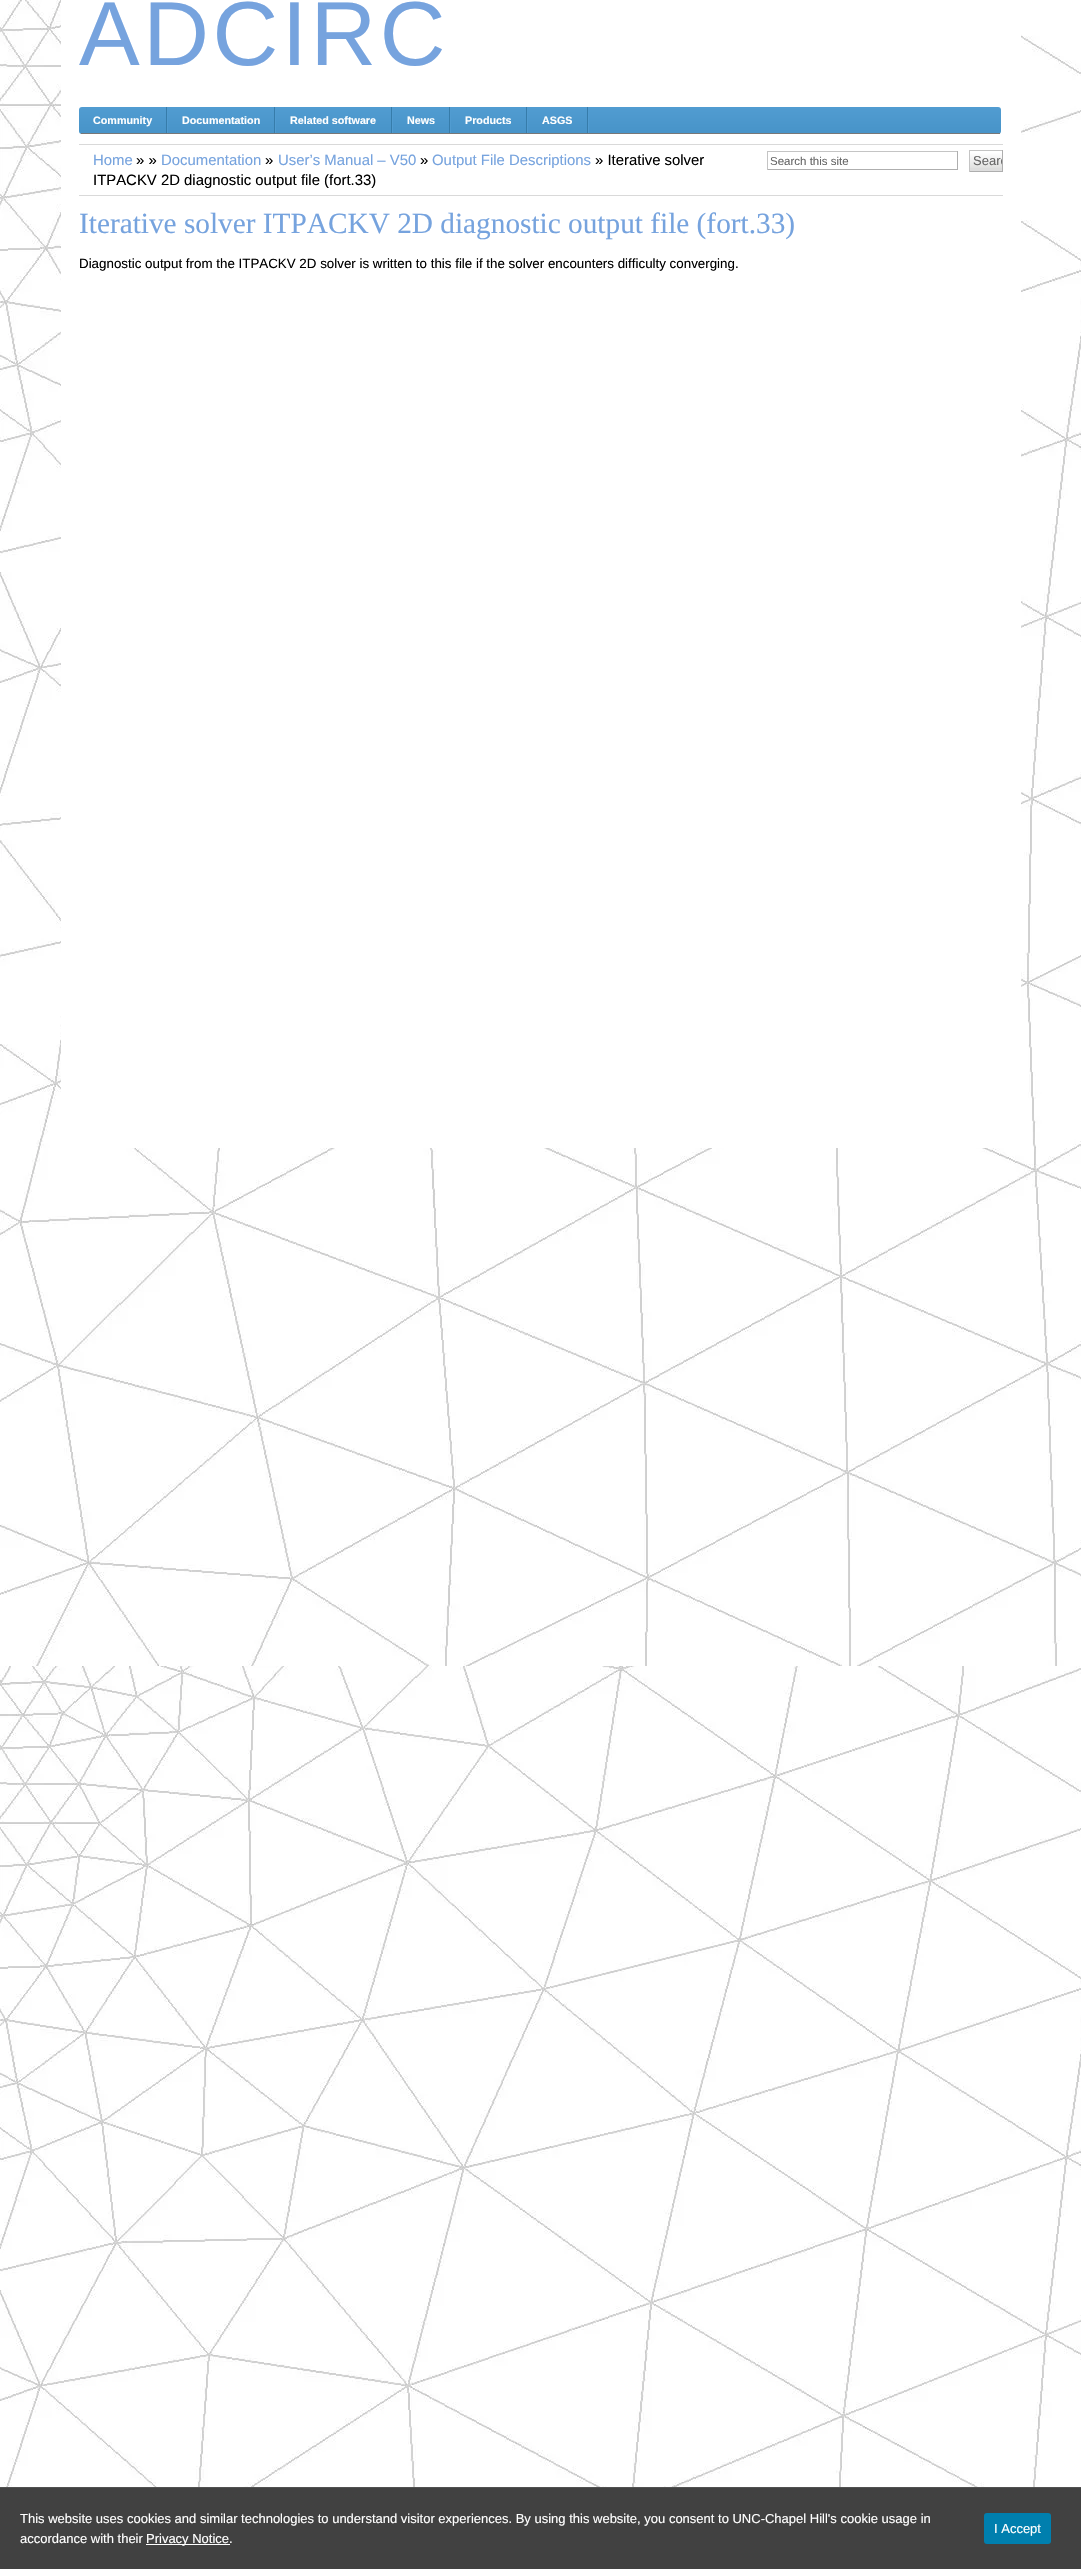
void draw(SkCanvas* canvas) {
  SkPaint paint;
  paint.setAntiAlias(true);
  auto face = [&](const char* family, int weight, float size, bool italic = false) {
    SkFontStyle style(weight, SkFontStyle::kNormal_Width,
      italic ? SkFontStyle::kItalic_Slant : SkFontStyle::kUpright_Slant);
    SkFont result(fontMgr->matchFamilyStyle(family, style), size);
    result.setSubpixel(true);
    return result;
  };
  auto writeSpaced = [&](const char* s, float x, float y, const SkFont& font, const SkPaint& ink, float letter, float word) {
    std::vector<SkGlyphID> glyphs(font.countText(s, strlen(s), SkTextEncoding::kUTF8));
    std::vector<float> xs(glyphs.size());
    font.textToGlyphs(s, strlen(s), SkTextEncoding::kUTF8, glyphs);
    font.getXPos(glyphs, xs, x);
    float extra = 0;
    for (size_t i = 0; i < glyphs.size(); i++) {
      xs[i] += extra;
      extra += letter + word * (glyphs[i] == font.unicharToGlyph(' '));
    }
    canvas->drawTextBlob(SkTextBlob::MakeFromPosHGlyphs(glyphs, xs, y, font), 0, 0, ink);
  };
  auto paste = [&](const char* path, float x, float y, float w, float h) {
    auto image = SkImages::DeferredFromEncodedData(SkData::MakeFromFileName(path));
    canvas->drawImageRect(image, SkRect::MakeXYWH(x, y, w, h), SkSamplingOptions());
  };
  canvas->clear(0xffffffff);
  paste("img/1.png", 0, 0, 1081, 2487);
  paint.setColor(0xffffffff);
  canvas->drawRect(SkRect::MakeXYWH(61, 0, 960, 1148), paint);
  paste("img/2.png", 79, 107, 922, 27);
  {
    const struct { float x, y, w, h; SkColor color; } items[] = {
      {81, 133, 919, 1, 0xff777777},
      {166, 107, 1, 26, 0xff367caa},
      {167, 107, 1, 26, 0xff519cd1},
      {274, 107, 1, 26, 0xff367caa},
      {275, 107, 1, 26, 0xff519cd1},
      {391, 107, 1, 26, 0xff367caa},
      {392, 107, 1, 26, 0xff519cd1},
      {449, 107, 1, 26, 0xff367caa},
      {450, 107, 1, 26, 0xff519cd1},
      {526, 107, 1, 26, 0xff367caa},
      {588, 107, 1, 26, 0xff519cd1},
      {527, 107, 1, 26, 0xff519cd1},
      {587, 107, 1, 26, 0xff367caa},
      {79, 144, 924, 1, 0xffd9d9d9},
      {79, 195, 924, 1, 0xffd9d9d9},
      {767, 151, 191, 1, 0xffc4c4c4},
      {957, 151, 1, 19, 0xffaeaeae},
      {767, 169, 191, 1, 0xffaeaeae},
      {767, 151, 1, 19, 0xffc4c4c4},
      {970, 168, 32, 3, 0xffdddddd},
    };
    for (auto [x, y, w, h, color] : items) {
      paint.setColor(color);
      canvas->drawRect(SkRect::MakeXYWH(x, y, w, h), paint);
    }
  }
  paste("img/3.png", 970, 151, 32, 17);
  {
    const struct { float x, y, w, h; SkColor color; } items[] = {
      {969, 150, 34, 1, 0xffc4c4c4},
      {1002, 150, 1, 22, 0xffaeaeae},
      {969, 171, 34, 1, 0xffaeaeae},
      {969, 150, 1, 22, 0xffc4c4c4},
      {0, 2488, 1081, 81, 0xff414141},
      {0, 2487, 1081, 1, 0xff515151},
      {146, 2544, 84, 1, 0xffffffff},
    };
    for (auto [x, y, w, h, color] : items) {
      paint.setColor(color);
      canvas->drawRect(SkRect::MakeXYWH(x, y, w, h), paint);
    }
  }
  paint.setColor(0xff007fae);
  canvas->drawRoundRect(SkRect::MakeXYWH(984, 2513, 67, 31), 3, 3, paint);
  auto f0 = face("Liberation Sans", 400, 91);
  paint.setColor(0xff76a3de);
  writeSpaced("ADCIRC", 79, 65, f0, paint, 3.5f, 0);
  auto f1 = face("Liberation Sans", 700, 10.75f);
  paint.setColor(0xffffffff);
  {
    const struct { const char* s; float x, y; } items[] = {
      {"Community", 93, 124},
      {"Documentation", 182, 124},
      {"Related software", 290, 124},
      {"News", 407, 124},
      {"Products", 465, 124},
      {"ASGS", 542, 124},
    };
    for (auto [s, x, y] : items) {
      canvas->drawString(s, x, y, f1, paint);
    }
  }
  auto f2 = face("Liberation Sans", 400, 14.9f);
  paint.setColor(0xff76a3de);
  canvas->drawString("Home", 93, 165, f2, paint);
  paint.setColor(0xff000000);
  canvas->drawString("» »", 136, 165, f2, paint);
  paint.setColor(0xff76a3de);
  canvas->drawString("Documentation", 161, 165, f2, paint);
  paint.setColor(0xff000000);
  canvas->drawString("»", 265, 165, f2, paint);
  paint.setColor(0xff76a3de);
  canvas->drawString("User’s Manual – V50", 278, 165, f2, paint);
  paint.setColor(0xff000000);
  canvas->drawString("»", 420, 165, f2, paint);
  paint.setColor(0xff76a3de);
  canvas->drawString("Output File Descriptions", 432, 165, f2, paint);
  paint.setColor(0xff000000);
  canvas->drawString("» Iterative solver", 595, 165, f2, paint);
  canvas->drawString("ITPACKV 2D diagnostic output file (fort.33)", 93, 185, f2, paint);
  auto f3 = face("Liberation Sans", 400, 11.5f);
  paint.setColor(0xff666666);
  canvas->drawString("Search this site", 770, 165, f3, paint);
  canvas->save();
  canvas->clipRect(SkRect::MakeXYWH(970, 151, 32, 20));
  auto f4 = face("Liberation Sans", 400, 13);
  canvas->drawString("Searc", 973, 165, f4, paint);
  canvas->restore();
  auto f5 = face("Liberation Serif", 400, 29.3f);
  paint.setColor(0xff76a3de);
  canvas->drawString("Iterative solver ITPACKV 2D diagnostic output file (fort.33)", 79, 233, f5, paint);
  auto f6 = face("Liberation Sans", 400, 13.35f);
  paint.setColor(0xff000000);
  canvas->drawString("Diagnostic output from the ITPACKV 2D solver is written to this file if the solver encounters difficulty converging.", 79, 268, f6, paint);
  paint.setColor(0xffffffff);
  {
    const struct { const char* s; float x, y; } items[] = {
      {"This website uses cookies and similar technologies to understand visitor experiences. By using this website, you consent to UNC-Chapel Hill's cookie usage in", 20, 2523},
      {"accordance with their", 20, 2543},
      {"Privacy Notice.", 146, 2543},
      {"I Accept", 994, 2533},
    };
    for (auto [s, x, y] : items) {
      canvas->drawString(s, x, y, f4, paint);
    }
  }
}
